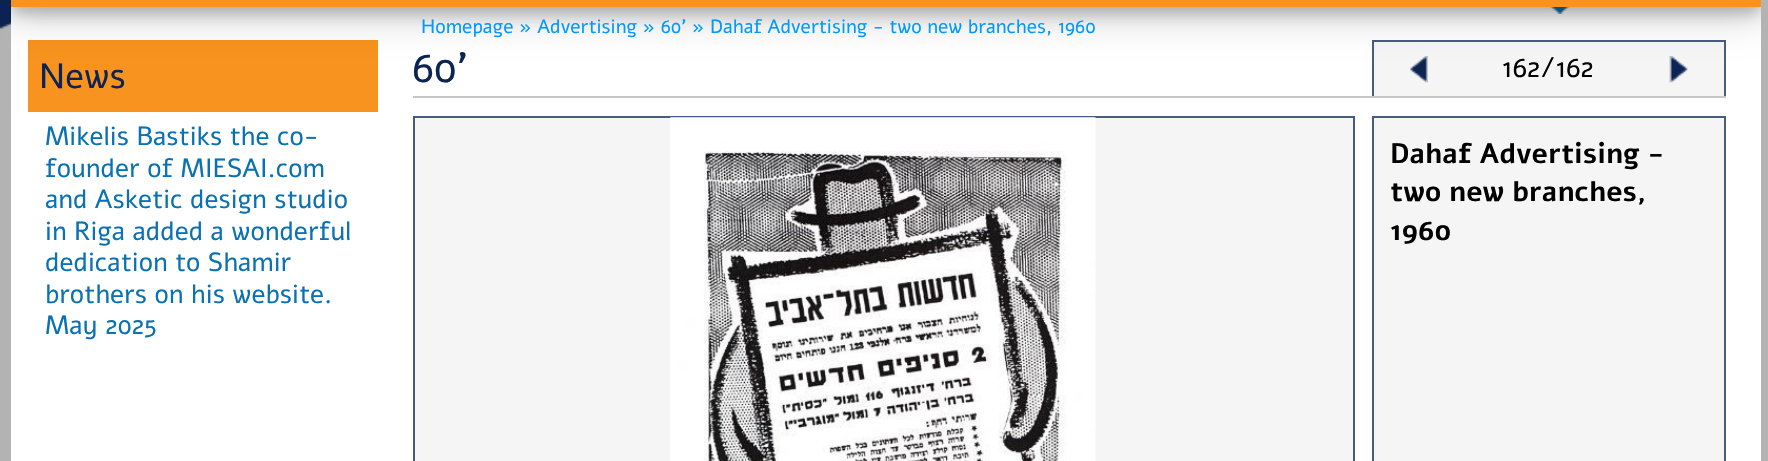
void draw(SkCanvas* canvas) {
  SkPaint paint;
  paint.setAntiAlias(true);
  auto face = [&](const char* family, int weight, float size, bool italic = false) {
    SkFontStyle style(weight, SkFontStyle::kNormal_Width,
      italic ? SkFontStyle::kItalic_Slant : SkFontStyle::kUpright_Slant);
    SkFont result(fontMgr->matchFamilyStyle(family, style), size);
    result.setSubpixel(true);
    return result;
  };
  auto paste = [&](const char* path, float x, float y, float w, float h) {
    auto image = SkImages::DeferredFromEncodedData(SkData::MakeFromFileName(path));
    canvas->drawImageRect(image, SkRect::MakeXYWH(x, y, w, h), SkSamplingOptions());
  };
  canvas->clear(0xffffffff);
  paste("img/1.png", 0, 0, 1768, 461);
  paint.setColor(0xffffffff);
  canvas->drawRect(SkRect::MakeXYWH(11, 7, 1750, 454), paint);
  paste("img/2.png", 1549, 7, 21, 7);
  {
    const struct { float x, y, w, h; SkColor color; } items[] = {
      {28, 40, 350, 72, 0xfff7931e},
      {1374, 42, 350, 54, 0xfff5f5f6},
      {1372, 40, 354, 2, 0xff495b7e},
      {1724, 40, 2, 56, 0xff495b7e},
      {1372, 40, 2, 56, 0xff495b7e},
    };
    for (auto [x, y, w, h, color] : items) {
      paint.setColor(color);
      canvas->drawRect(SkRect::MakeXYWH(x, y, w, h), paint);
    }
  }
  paste("img/3.png", 1410, 56, 18, 27);
  paste("img/4.png", 1669, 56, 19, 27);
  canvas->save();
  canvas->clipRect(SkRect::MakeXYWH(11, 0, 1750, 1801));
  paint.setColor(0x30000000);
  paint.setMaskFilter(SkMaskFilter::MakeBlur(kNormal_SkBlurStyle, 17.5f));
  canvas->drawRect(SkRect::MakeXYWH(11, -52, 1750, 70), paint);
  paint.setMaskFilter(nullptr);
  paint.setColor(0x33000000);
  paint.setMaskFilter(SkMaskFilter::MakeBlur(kNormal_SkBlurStyle, 7));
  canvas->drawRect(SkRect::MakeXYWH(11, -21, 1750, 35), paint);
  paint.setMaskFilter(nullptr);
  canvas->restore();
  paint.setColor(0xfff7931e);
  canvas->drawRect(SkRect::MakeXYWH(11, 0, 1750, 7), paint);
  paint.setColor(0xffc6c6c6);
  canvas->drawRect(SkRect::MakeXYWH(413, 96, 1313, 2), paint);
  paint.setColor(0xfff5f5f6);
  canvas->drawRect(SkRect::MakeXYWH(414, 117, 940, 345), paint);
  paint.setStroke(true);
  paint.setStrokeWidth(2);
  paint.setColor(0xff495b7e);
  canvas->drawRect(SkRect::MakeXYWH(414, 117, 940, 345), paint);
  paste("img/5.png", 670, 117, 426, 344);
  paint.setStroke(false);
  paint.setColor(0xfff5f5f6);
  canvas->drawRect(SkRect::MakeXYWH(1373, 117, 352, 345), paint);
  paint.setStroke(true);
  paint.setColor(0xff495b7e);
  canvas->drawRect(SkRect::MakeXYWH(1373, 117, 352, 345), paint);
  auto f0 = face("Alef", 400, 19.25f);
  paint.setStroke(false);
  paint.setColor(0xff0099ff);
  canvas->drawString("Homepage » Advertising » 60' » Dahaf Advertising - two new branches, 1960", 421, 33, f0, paint);
  auto f1 = face("Alef", 400, 35);
  paint.setColor(0xff0c2453);
  canvas->drawString("News", 39, 88, f1, paint);
  auto f2 = face("Alef", 400, 26.25f);
  paint.setColor(0xff0a71b3);
  {
    const struct { const char* s; float x, y; } items[] = {
      {"Mikelis Bastiks the co-", 45, 145},
      {"founder of MIESAI.com", 45, 177},
      {"and Asketic design studio", 45, 208},
      {"in Riga added a wonderful", 45, 240},
      {"dedication to Shamir", 45, 271},
      {"brothers on his website.", 45, 303},
      {"May 2025", 45, 334},
    };
    for (auto [s, x, y] : items) {
      canvas->drawString(s, x, y, f2, paint);
    }
  }
  auto f3 = face("Alef", 400, 42);
  paint.setColor(0xff0c2453);
  canvas->drawString("60'", 412, 82, f3, paint);
  auto f4 = face("Alef", 400, 28);
  paint.setColor(0xff000000);
  canvas->drawString("162/162", 1502, 77, f4, paint);
  auto f5 = face("Alef", 700, 28);
  {
    const struct { const char* s; float x, y; } items[] = {
      {"Dahaf Advertising -", 1390, 163},
      {"two new branches,", 1390, 201},
      {"1960", 1390, 240},
    };
    for (auto [s, x, y] : items) {
      canvas->drawString(s, x, y, f5, paint);
    }
  }
}
